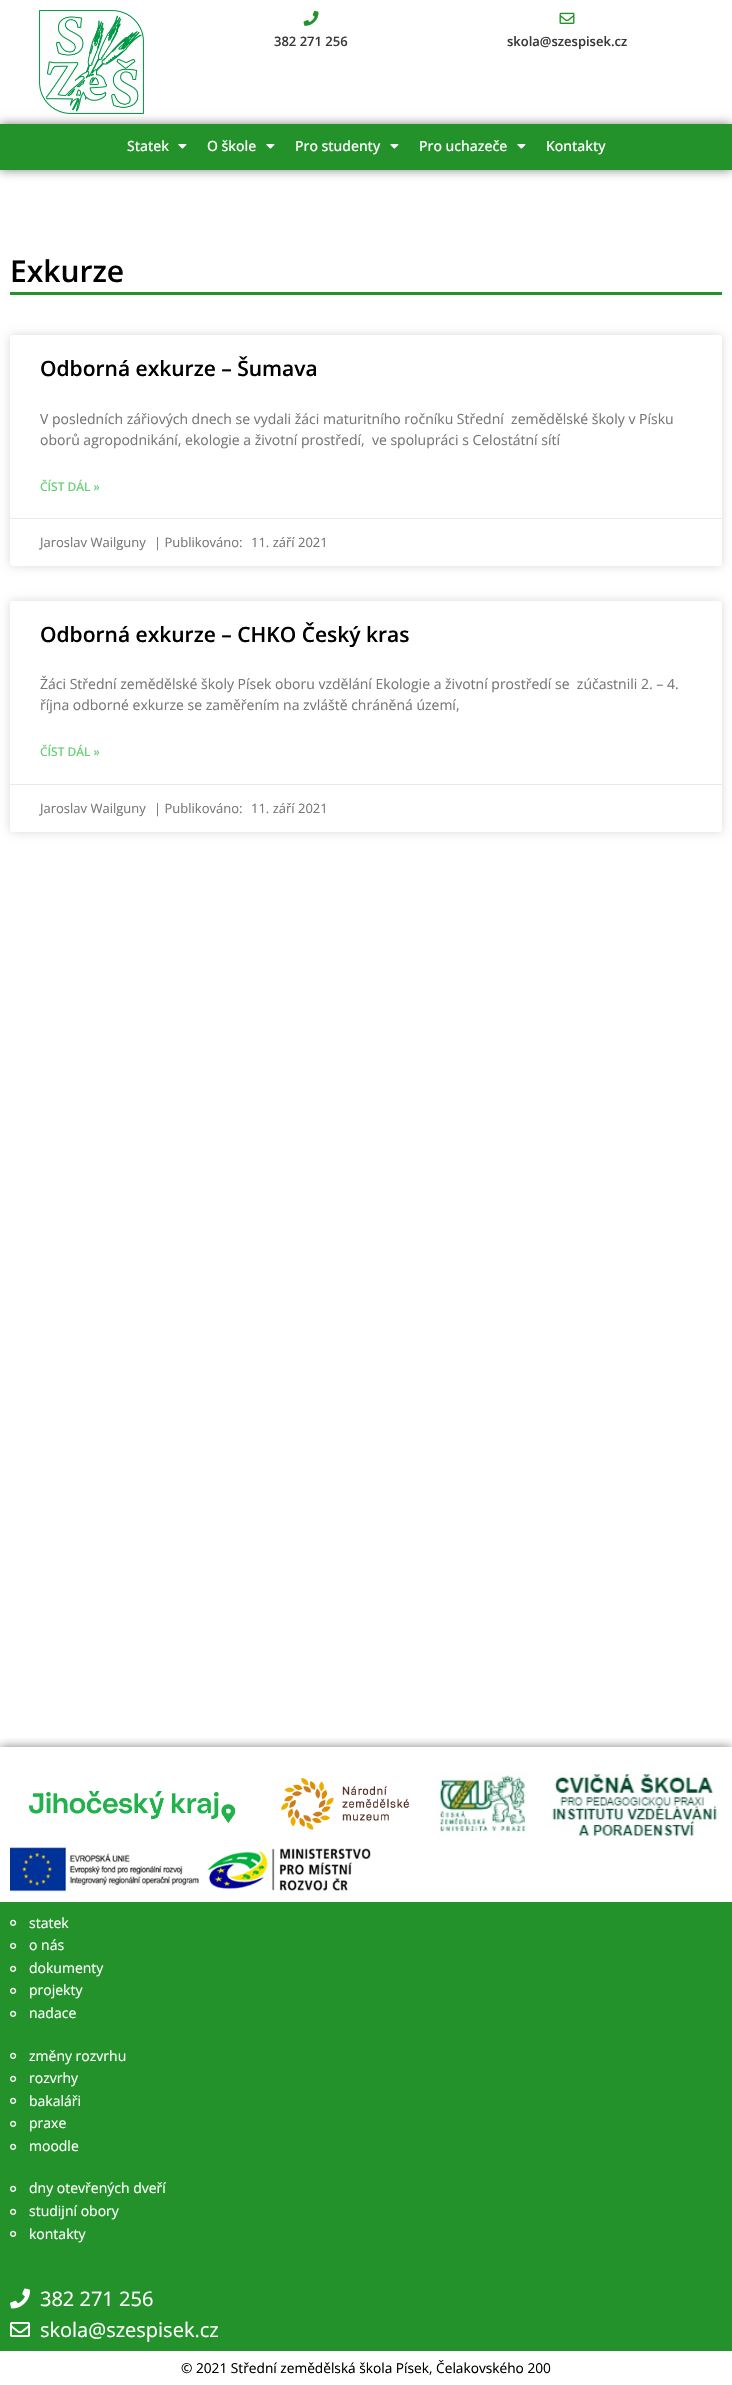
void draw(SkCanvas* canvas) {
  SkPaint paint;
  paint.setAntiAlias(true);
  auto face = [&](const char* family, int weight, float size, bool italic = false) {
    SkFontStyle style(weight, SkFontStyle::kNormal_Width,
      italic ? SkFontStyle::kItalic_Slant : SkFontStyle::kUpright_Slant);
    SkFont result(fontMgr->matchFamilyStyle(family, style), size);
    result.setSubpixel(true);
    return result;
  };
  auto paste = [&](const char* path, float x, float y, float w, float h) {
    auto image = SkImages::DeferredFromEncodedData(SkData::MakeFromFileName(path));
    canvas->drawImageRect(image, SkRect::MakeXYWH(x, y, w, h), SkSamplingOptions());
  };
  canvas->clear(0xffffffff);
  paste("img/1.png", 39, 10, 105, 104);
  paste("img/2.png", 303, 10, 16, 16);
  paste("img/3.png", 559, 12, 16, 12);
  paint.setColor(0x80000000);
  paint.setMaskFilter(SkMaskFilter::MakeBlur(kNormal_SkBlurStyle, 5));
  canvas->drawRect(SkRect::MakeXYWH(0, 124, 732, 46), paint);
  paint.setMaskFilter(nullptr);
  paint.setColor(0xff24922a);
  canvas->drawRect(SkRect::MakeXYWH(0, 124, 732, 46), paint);
  paste("img/4.png", 178, 144, 9, 5);
  paste("img/4.png", 266, 144, 9, 5);
  paste("img/4.png", 390, 144, 9, 5);
  paste("img/4.png", 517, 144, 9, 5);
  canvas->drawRect(SkRect::MakeXYWH(10, 292, 712, 3), paint);
  paint.setColor(0x26000000);
  paint.setMaskFilter(SkMaskFilter::MakeBlur(kNormal_SkBlurStyle, 5));
  canvas->drawRoundRect(SkRect::MakeXYWH(10, 335, 712, 231), 3, 3, paint);
  paint.setMaskFilter(nullptr);
  paint.setColor(0xffffffff);
  canvas->drawRoundRect(SkRect::MakeXYWH(10, 335, 712, 231), 3, 3, paint);
  paint.setColor(0xffeaeaea);
  canvas->drawRect(SkRect::MakeXYWH(10, 518, 712, 1), paint);
  paint.setColor(0x26000000);
  paint.setMaskFilter(SkMaskFilter::MakeBlur(kNormal_SkBlurStyle, 5));
  canvas->drawRoundRect(SkRect::MakeXYWH(10, 601, 712, 231), 3, 3, paint);
  paint.setMaskFilter(nullptr);
  paint.setColor(0xffffffff);
  canvas->drawRoundRect(SkRect::MakeXYWH(10, 601, 712, 231), 3, 3, paint);
  paint.setColor(0xffeaeaea);
  canvas->drawRect(SkRect::MakeXYWH(10, 784, 712, 1), paint);
  canvas->save();
  canvas->clipRect(SkRect::MakeXYWH(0, 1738, 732, 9));
  paint.setColor(0x80000000);
  paint.setMaskFilter(SkMaskFilter::MakeBlur(kNormal_SkBlurStyle, 5));
  canvas->drawRect(SkRect::MakeXYWH(0, 1747, 732, 155), paint);
  paint.setMaskFilter(nullptr);
  canvas->restore();
  paste("img/5.png", 28, 1790, 208, 34);
  paste("img/6.png", 281, 1778, 128, 52);
  paste("img/7.png", 436, 1772, 282, 65);
  paste("img/8.png", 10, 1847, 361, 45);
  paint.setColor(0xff24922a);
  canvas->drawRect(SkRect::MakeXYWH(0, 1902, 732, 449), paint);
  paste("img/9.png", 10, 1919, 7, 7);
  paste("img/9.png", 10, 1942, 7, 7);
  paste("img/9.png", 10, 1965, 7, 7);
  paste("img/9.png", 10, 1987, 7, 7);
  paste("img/9.png", 10, 2010, 7, 7);
  paste("img/9.png", 10, 2052, 7, 7);
  paste("img/9.png", 10, 2075, 7, 7);
  paste("img/9.png", 10, 2097, 7, 7);
  paste("img/9.png", 10, 2120, 7, 7);
  paste("img/9.png", 10, 2143, 7, 7);
  paste("img/9.png", 10, 2185, 7, 7);
  paste("img/9.png", 10, 2208, 7, 7);
  paste("img/9.png", 10, 2230, 7, 7);
  paste("img/10.png", 10, 2288, 20, 21);
  paste("img/11.png", 10, 2322, 20, 15);
  auto f0 = face("Open Sans", 600, 13);
  paint.setColor(0xff3a3a3a);
  canvas->drawString("382 271 256", 274, 46, f0, paint);
  canvas->drawString("skola@szespisek.cz", 507, 46, f0, paint);
  auto f1 = face("Open Sans", 500, 14);
  paint.setColor(0xffffffff);
  {
    const struct { const char* s; float x, y; } items[] = {
      {"Statek", 127, 151},
      {"O škole", 207, 151},
      {"Pro studenty", 295, 151},
      {"Pro uchazeče", 419, 151},
      {"Kontakty", 546, 151},
    };
    for (auto [s, x, y] : items) {
      canvas->drawString(s, x, y, f1, paint);
    }
  }
  auto f2 = face("Open Sans", 600, 30);
  paint.setColor(0xff000000);
  canvas->drawString("Exkurze", 10, 282, f2, paint);
  auto f3 = face("Open Sans", 600, 21);
  canvas->drawString("Odborná exkurze – Šumava", 40, 376, f3, paint);
  auto f4 = face("Open Sans", 400, 14);
  paint.setColor(0xff777777);
  canvas->drawString("V posledních zářiových dnech se vydali žáci maturitního ročníku Střední  zemědělské školy v Písku", 40, 424, f4, paint);
  canvas->drawString("oborů agropodnikání, ekologie a životní prostředí,  ve spolupráci s Celostátní sítí", 40, 445, f4, paint);
  auto f5 = face("Open Sans", 500, 12);
  paint.setColor(0xff61ce70);
  canvas->drawString("ČÍST DÁL »", 40, 491, f5, paint);
  auto f6 = face("Open Sans", 400, 13);
  paint.setColor(0xff777777);
  {
    const struct { const char* s; float x, y; } items[] = {
      {"Jaroslav Wailguny", 40, 547},
      {"| Publikováno:", 154, 547},
      {"11. září 2021", 251, 547},
    };
    for (auto [s, x, y] : items) {
      canvas->drawString(s, x, y, f6, paint);
    }
  }
  paint.setColor(0xff000000);
  canvas->drawString("Odborná exkurze – CHKO Český kras", 40, 642, f3, paint);
  paint.setColor(0xff777777);
  canvas->drawString("Žáci Střední zemědělské školy Písek oboru vzdělání Ekologie a životní prostředí se  zúčastnili 2. – 4.", 40, 689, f4, paint);
  canvas->drawString("října odborné exkurze se zaměřením na zvláště chráněná území,", 40, 710, f4, paint);
  paint.setColor(0xff61ce70);
  canvas->drawString("ČÍST DÁL »", 40, 756, f5, paint);
  paint.setColor(0xff777777);
  {
    const struct { const char* s; float x, y; } items[] = {
      {"Jaroslav Wailguny", 40, 813},
      {"| Publikováno:", 154, 813},
      {"11. září 2021", 251, 813},
    };
    for (auto [s, x, y] : items) {
      canvas->drawString(s, x, y, f6, paint);
    }
  }
  paint.setColor(0xffffffff);
  {
    const struct { const char* s; float x, y; } items[] = {
      {"statek", 29, 1928},
      {"o nás", 29, 1950},
      {"dokumenty", 29, 1973},
      {"projekty", 29, 1995},
      {"nadace", 29, 2018},
      {"změny rozvrhu", 29, 2061},
      {"rozvrhy", 29, 2083},
      {"bakaláři", 29, 2106},
      {"praxe", 29, 2128},
      {"moodle", 29, 2151},
      {"dny otevřených dveří", 29, 2193},
      {"studijní obory", 29, 2216},
      {"kontakty", 29, 2239},
    };
    for (auto [s, x, y] : items) {
      canvas->drawString(s, x, y, f4, paint);
    }
  }
  auto f7 = face("Open Sans", 400, 20);
  canvas->drawString("382 271 256", 40, 2306, f7, paint);
  canvas->drawString("skola@szespisek.cz", 40, 2337, f7, paint);
  auto f8 = face("Open Sans", 400, 13.7f);
  paint.setColor(0xff000000);
  canvas->drawString("© 2021 Střední zemědělská škola Písek, Čelakovského 200", 181, 2373, f8, paint);
}
